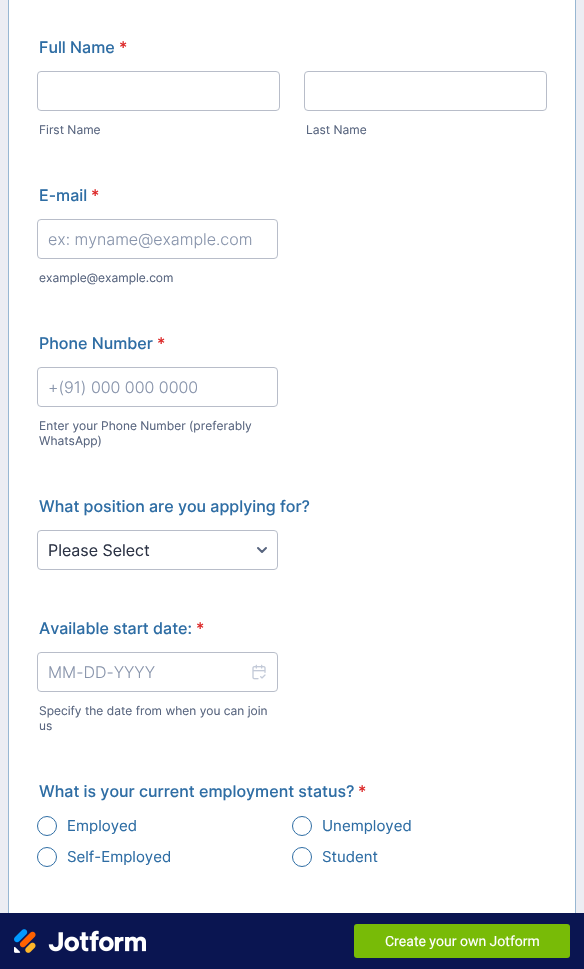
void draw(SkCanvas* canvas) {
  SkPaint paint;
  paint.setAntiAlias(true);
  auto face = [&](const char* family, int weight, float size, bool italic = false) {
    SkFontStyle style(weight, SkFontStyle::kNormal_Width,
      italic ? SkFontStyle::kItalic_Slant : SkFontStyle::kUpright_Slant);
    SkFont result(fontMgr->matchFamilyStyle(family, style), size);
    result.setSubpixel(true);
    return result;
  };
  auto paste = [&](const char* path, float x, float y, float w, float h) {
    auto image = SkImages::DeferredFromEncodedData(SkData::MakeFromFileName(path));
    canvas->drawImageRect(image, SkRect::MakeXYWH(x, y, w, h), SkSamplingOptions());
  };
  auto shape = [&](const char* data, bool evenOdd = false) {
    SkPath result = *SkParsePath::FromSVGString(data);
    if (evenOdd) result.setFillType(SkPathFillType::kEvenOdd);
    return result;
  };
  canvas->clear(0xffecedf3);
  paint.setColor(0xffffffff);
  canvas->drawRect(SkRect::MakeXYWH(9, 0, 566, 913), paint);
  paint.setStroke(true);
  paint.setStrokeWidth(1);
  paint.setColor(0xff98b7d2);
  canvas->drawRect(SkRect::MakeXYWH(8.5f, -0.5f, 567, 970), paint);
  paint.setColor(0xffb8bdc9);
  canvas->drawRoundRect(SkRect::MakeXYWH(37.5f, 71.5f, 242, 39), 3.5f, 3.5f, paint);
  canvas->drawRoundRect(SkRect::MakeXYWH(304.5f, 71.5f, 242, 39), 3.5f, 3.5f, paint);
  canvas->drawRoundRect(SkRect::MakeXYWH(37.5f, 219.5f, 240, 39), 3.5f, 3.5f, paint);
  canvas->drawRoundRect(SkRect::MakeXYWH(37.5f, 367.5f, 240, 39), 3.5f, 3.5f, paint);
  paint.setStrokeWidth(2);
  paint.setStrokeCap(SkPaint::kRound_Cap);
  paint.setStrokeJoin(SkPaint::kRound_Join);
  paint.setColor(0xff57647e);
  canvas->drawPath(shape("M258 548L262 552L266 548"), paint);
  paint.setStrokeWidth(1);
  paint.setStrokeCap(SkPaint::kButt_Cap);
  paint.setStrokeJoin(SkPaint::kMiter_Join);
  paint.setColor(0xffb8bdc9);
  canvas->drawRoundRect(SkRect::MakeXYWH(37.5f, 530.5f, 240, 39), 3.5f, 3.5f, paint);
  paste("img/1.png", 252, 664, 14, 16);
  canvas->drawRoundRect(SkRect::MakeXYWH(37.5f, 652.5f, 240, 39), 3.5f, 3.5f, paint);
  paint.setColor(0xff2e6da4);
  canvas->drawCircle(47, 826, 9.5f, paint);
  canvas->drawCircle(302, 826, 9.5f, paint);
  canvas->drawCircle(47, 857, 9.5f, paint);
  canvas->drawCircle(302, 857, 9.5f, paint);
  paint.setStroke(false);
  paint.setColor(0xff0a1551);
  canvas->drawRect(SkRect::MakeXYWH(0, 913, 584, 56), paint);
  paste("img/2.png", 14, 929, 132, 24);
  paint.setColor(0xff78bb07);
  canvas->drawRoundRect(SkRect::MakeXYWH(354, 924, 216, 34), 3, 3, paint);
  auto f0 = face("Inter", 500, 16);
  paint.setColor(0xff2e6da4);
  canvas->drawString("Full Name", 39, 53, f0, paint);
  paint.setColor(0xffdc2626);
  canvas->drawString("*", 119, 53, f0, paint);
  auto f1 = face("Inter", 400, 12);
  paint.setColor(0xff57647e);
  canvas->drawString("First Name", 39, 134, f1, paint);
  canvas->drawString("Last Name", 306, 134, f1, paint);
  paint.setColor(0xff2e6da4);
  canvas->drawString("E-mail", 39, 201, f0, paint);
  paint.setColor(0xffdc2626);
  canvas->drawString("*", 91, 201, f0, paint);
  auto f2 = face("Inter", 300, 16);
  paint.setColor(0xff8894ab);
  canvas->drawString("ex: myname@example.com", 48, 245, f2, paint);
  paint.setColor(0xff57647e);
  canvas->drawString("example@example.com", 39, 282, f1, paint);
  paint.setColor(0xff2e6da4);
  canvas->drawString("Phone Number", 39, 349, f0, paint);
  paint.setColor(0xffdc2626);
  canvas->drawString("*", 157, 349, f0, paint);
  paint.setColor(0xff8894ab);
  canvas->drawString("+(91) 000 000 0000", 48, 393, f2, paint);
  paint.setColor(0xff57647e);
  canvas->drawString("Enter your Phone Number (preferably", 39, 430, f1, paint);
  canvas->drawString("WhatsApp)", 39, 445, f1, paint);
  paint.setColor(0xff2e6da4);
  canvas->drawString("What position are you applying for?", 39, 512, f0, paint);
  auto f3 = face("Inter", 400, 16);
  paint.setColor(0xff2c3345);
  canvas->drawString("Please Select", 48, 556, f3, paint);
  paint.setColor(0xff2e6da4);
  canvas->drawString("Available start date:", 39, 634, f0, paint);
  paint.setColor(0xffdc2626);
  canvas->drawString("*", 196, 634, f0, paint);
  paint.setColor(0xff8894ab);
  canvas->drawString("MM-DD-YYYY", 48, 678, f2, paint);
  paint.setColor(0xff57647e);
  canvas->drawString("Specify the date from when you can join", 39, 715, f1, paint);
  canvas->drawString("us", 39, 730, f1, paint);
  paint.setColor(0xff2e6da4);
  canvas->drawString("What is your current employment status?", 39, 797, f0, paint);
  paint.setColor(0xffdc2626);
  canvas->drawString("*", 358, 797, f0, paint);
  auto f4 = face("Inter", 400, 15);
  paint.setColor(0xff2e6da4);
  {
    const struct { const char* s; float x, y; } items[] = {
      {"Employed", 67, 831},
      {"Unemployed", 322, 831},
      {"Self-Employed", 67, 862},
      {"Student", 322, 862},
    };
    for (auto [s, x, y] : items) {
      canvas->drawString(s, x, y, f4, paint);
    }
  }
  auto f5 = face("Roboto", 400, 14);
  paint.setColor(0xffffffff);
  canvas->drawString("Create your own Jotform", 385, 946, f5, paint);
}
